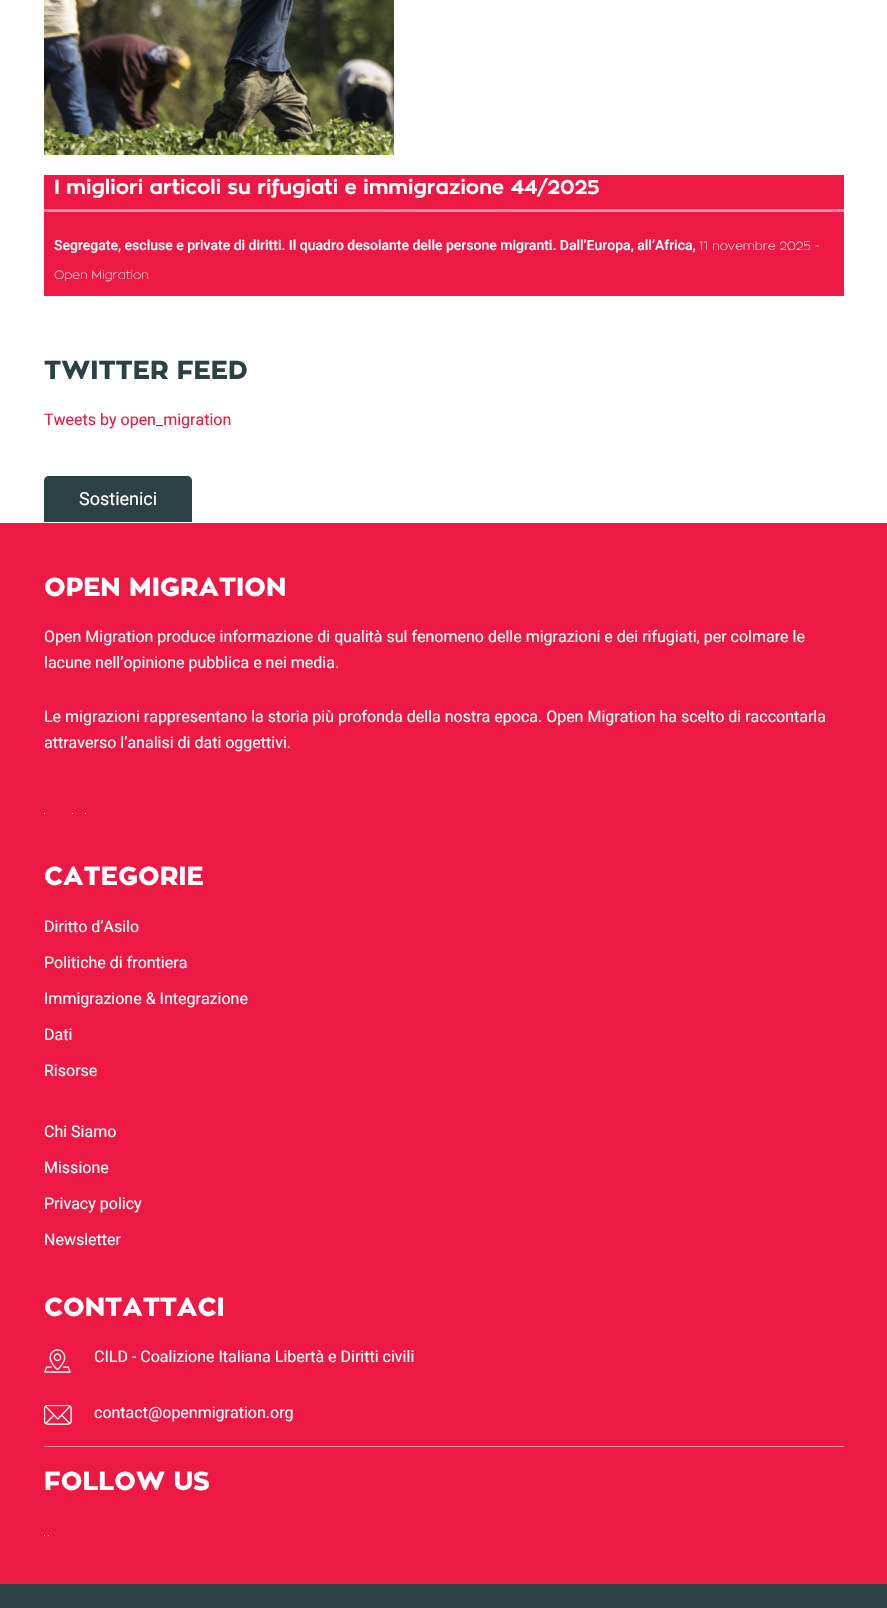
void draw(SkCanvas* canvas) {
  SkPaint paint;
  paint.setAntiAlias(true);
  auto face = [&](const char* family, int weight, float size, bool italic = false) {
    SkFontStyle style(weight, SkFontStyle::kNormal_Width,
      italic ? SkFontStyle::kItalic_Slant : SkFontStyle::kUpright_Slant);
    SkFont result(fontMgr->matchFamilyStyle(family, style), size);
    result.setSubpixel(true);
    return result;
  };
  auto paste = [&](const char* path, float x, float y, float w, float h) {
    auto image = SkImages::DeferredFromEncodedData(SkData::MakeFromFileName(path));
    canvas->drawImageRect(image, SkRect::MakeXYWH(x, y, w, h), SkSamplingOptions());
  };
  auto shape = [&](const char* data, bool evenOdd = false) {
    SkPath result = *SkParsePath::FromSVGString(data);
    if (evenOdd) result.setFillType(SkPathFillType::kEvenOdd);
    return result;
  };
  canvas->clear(0xffffffff);
  paste("img/1.png", 44, 0, 350, 155);
  {
    const struct { float x, y, w, h; SkColor color; } items[] = {
      {44, 175, 800, 121, 0xffed1944},
      {44, 209, 800, 3, 0xfff68ca2},
      {0, 523, 887, 1061, 0xffed1944},
    };
    for (auto [x, y, w, h, color] : items) {
      paint.setColor(color);
      canvas->drawRect(SkRect::MakeXYWH(x, y, w, h), paint);
    }
  }
  paint.setColor(0xff2c4143);
  canvas->drawPath(shape("M49 476H187C190 476 192 478 192 481V522H44V481C44 478 46 476 49 476Z"), paint);
  {
    const struct { float x, y, w, h; SkColor color; } items[] = {
      {44, 813, 1, 1, 0xffffffff},
      {72, 813, 1, 1, 0xffffffff},
      {85, 813, 1, 1, 0xffffffff},
      {44, 1446, 800, 1, 0xfff68ca2},
    };
    for (auto [x, y, w, h, color] : items) {
      paint.setColor(color);
      canvas->drawRect(SkRect::MakeXYWH(x, y, w, h), paint);
    }
  }
  paste("img/2.png", 44, 1349, 27, 24);
  paste("img/3.png", 44, 1405, 28, 20);
  {
    const struct { float x, y, w, h; SkColor color; } items[] = {
      {44, 1535, 1, 1, 0xffffffff},
      {48, 1535, 1, 1, 0xffffffff},
      {0, 1584, 887, 24, 0xff2c4143},
    };
    for (auto [x, y, w, h, color] : items) {
      paint.setColor(color);
      canvas->drawRect(SkRect::MakeXYWH(x, y, w, h), paint);
    }
  }
  auto f0 = face("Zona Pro", 700, 20);
  paint.setColor(0xffffffff);
  canvas->drawString("I migliori articoli su rifugiati e immigrazione 44/2025", 54, 194, f0, paint);
  auto f1 = face("Roboto", 500, 14);
  canvas->drawString("Segregate, escluse e private di diritti. Il quadro desolante delle persone migranti. Dall’Europa, all’Africa,", 54, 250, f1, paint);
  auto f2 = face("Zona Pro", 100, 12);
  canvas->drawString("11 novembre 2025 -", 699, 250, f2, paint);
  canvas->drawString("Open Migration", 54, 279, f2, paint);
  auto f3 = face("Zona Pro", 800, 26);
  paint.setColor(0xff2c4143);
  canvas->drawString("TWITTER FEED", 44, 379, f3, paint);
  auto f4 = face("Roboto", 400, 16);
  paint.setColor(0xffed1944);
  canvas->drawString("Tweets by open_migration", 44, 425, f4, paint);
  auto f5 = face("Roboto", 400, 18);
  paint.setColor(0xffffffff);
  canvas->drawString("Sostienici", 79, 505, f5, paint);
  canvas->drawString("OPEN MIGRATION", 44, 596, f3, paint);
  {
    const struct { const char* s; float x, y; } items[] = {
      {"Open Migration produce informazione di qualità sul fenomeno delle migrazioni e dei rifugiati, per colmare le", 44, 642},
      {"lacune nell’opinione pubblica e nei media.", 44, 668},
      {"Le migrazioni rappresentano la storia più profonda della nostra epoca. Open Migration ha scelto di raccontarla", 44, 722},
      {"attraverso l’analisi di dati oggettivi.", 44, 748},
    };
    for (auto [s, x, y] : items) {
      canvas->drawString(s, x, y, f4, paint);
    }
  }
  canvas->drawString("CATEGORIE", 44, 885, f3, paint);
  {
    const struct { const char* s; float x, y; } items[] = {
      {"Diritto d’Asilo", 44, 932},
      {"Politiche di frontiera", 44, 968},
      {"Immigrazione & Integrazione", 44, 1004},
      {"Dati", 44, 1040},
      {"Risorse", 44, 1076},
      {"Chi Siamo", 44, 1137},
      {"Missione", 44, 1173},
      {"Privacy policy", 44, 1209},
      {"Newsletter", 44, 1245},
    };
    for (auto [s, x, y] : items) {
      canvas->drawString(s, x, y, f4, paint);
    }
  }
  canvas->drawString("CONTATTACI", 44, 1316, f3, paint);
  canvas->drawString("CILD - Coalizione Italiana Libertà e Diritti civili", 94, 1362, f4, paint);
  canvas->drawString("contact@openmigration.org", 94, 1418, f4, paint);
  canvas->drawString("FOLLOW US", 44, 1490, f3, paint);
}
